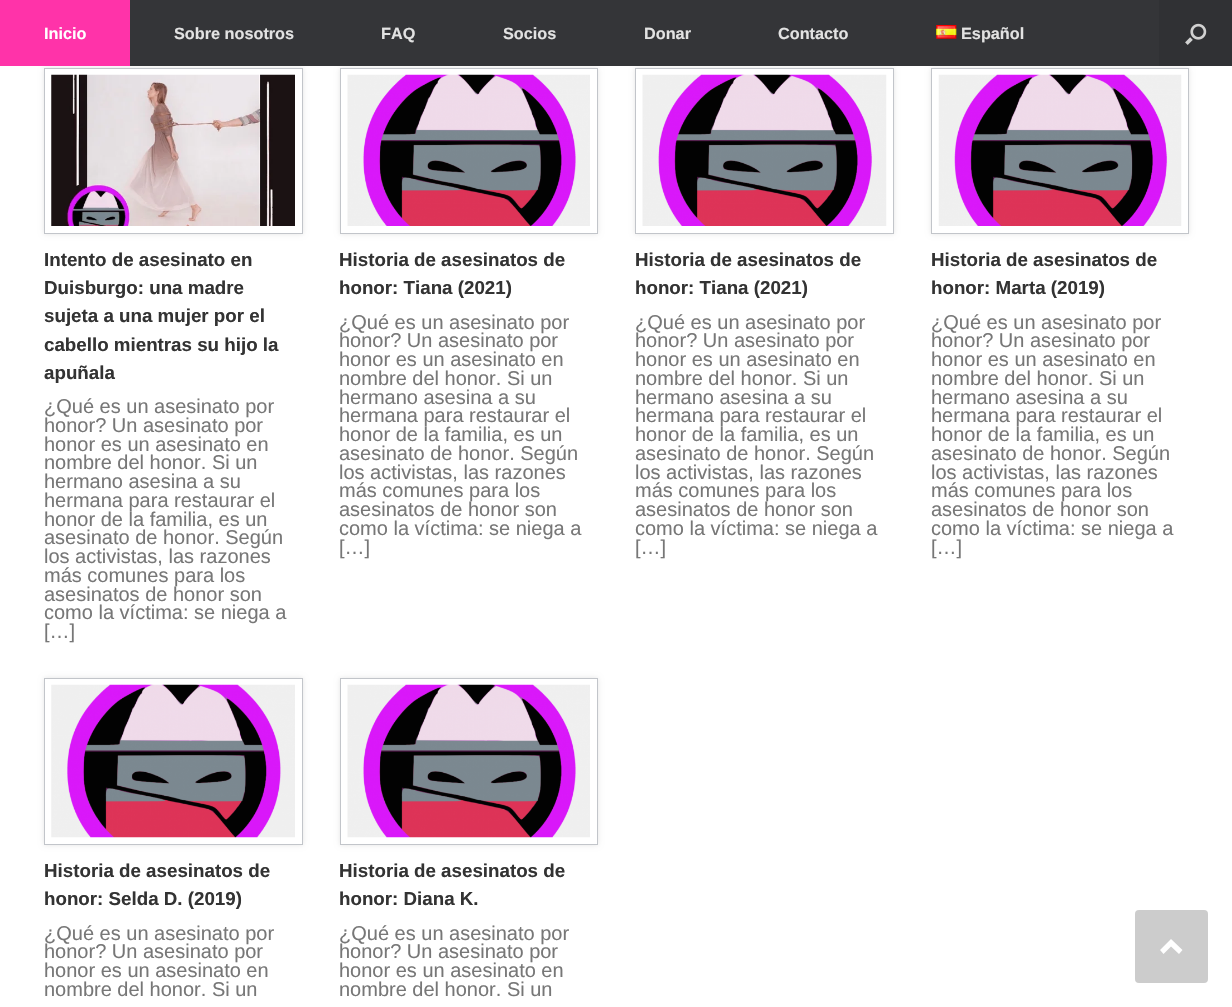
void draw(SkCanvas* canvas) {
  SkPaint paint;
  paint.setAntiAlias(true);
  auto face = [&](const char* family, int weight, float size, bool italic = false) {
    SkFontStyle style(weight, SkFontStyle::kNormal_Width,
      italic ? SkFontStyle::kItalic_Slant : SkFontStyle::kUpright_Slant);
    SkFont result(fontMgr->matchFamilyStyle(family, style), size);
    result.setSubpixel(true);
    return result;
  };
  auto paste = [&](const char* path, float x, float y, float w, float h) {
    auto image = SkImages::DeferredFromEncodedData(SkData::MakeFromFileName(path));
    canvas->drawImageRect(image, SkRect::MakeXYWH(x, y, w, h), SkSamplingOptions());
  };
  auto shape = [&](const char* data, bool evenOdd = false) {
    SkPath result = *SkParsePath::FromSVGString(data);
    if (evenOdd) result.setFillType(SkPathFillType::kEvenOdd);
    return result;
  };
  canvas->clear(0xffffffff);
  paint.setColor(0x1a000000);
  paint.setMaskFilter(SkMaskFilter::MakeBlur(kNormal_SkBlurStyle, 2.5f));
  canvas->drawRect(SkRect::MakeXYWH(44, 68, 259, 166), paint);
  paint.setMaskFilter(nullptr);
  paint.setMaskFilter(SkMaskFilter::MakeBlur(kNormal_SkBlurStyle, 2.5f));
  canvas->drawRect(SkRect::MakeXYWH(340, 68, 258, 166), paint);
  paint.setMaskFilter(nullptr);
  paint.setMaskFilter(SkMaskFilter::MakeBlur(kNormal_SkBlurStyle, 2.5f));
  canvas->drawRect(SkRect::MakeXYWH(635, 68, 259, 166), paint);
  paint.setMaskFilter(nullptr);
  paint.setMaskFilter(SkMaskFilter::MakeBlur(kNormal_SkBlurStyle, 2.5f));
  canvas->drawRect(SkRect::MakeXYWH(931, 68, 258, 166), paint);
  paint.setMaskFilter(nullptr);
  paint.setColor(0xff343538);
  canvas->drawRect(SkRect::MakeXYWH(130, 0, 1029, 66), paint);
  paint.setColor(0xffff33a9);
  canvas->drawRect(SkRect::MakeXYWH(0, 0, 130, 66), paint);
  paste("img/1.png", 936, 25, 21, 14);
  paint.setColor(0xff303134);
  canvas->drawRect(SkRect::MakeXYWH(1159, 0, 73, 66), paint);
  paste("img/2.png", 1185, 23, 22, 22);
  paint.setColor(0xffffffff);
  canvas->drawRect(SkRect::MakeXYWH(44.5f, 68.5f, 258, 165), paint);
  paint.setStroke(true);
  paint.setStrokeWidth(1);
  paint.setColor(0xffc2c5ca);
  canvas->drawRect(SkRect::MakeXYWH(44.5f, 68.5f, 258, 165), paint);
  paste("img/3.png", 51, 74, 244, 152);
  paint.setStroke(false);
  paint.setColor(0xffffffff);
  canvas->drawRect(SkRect::MakeXYWH(340.5f, 68.5f, 257, 165), paint);
  paint.setStroke(true);
  paint.setColor(0xffc2c5ca);
  canvas->drawRect(SkRect::MakeXYWH(340.5f, 68.5f, 257, 165), paint);
  paste("img/4.png", 347, 74, 243, 152);
  paint.setStroke(false);
  paint.setColor(0xffffffff);
  canvas->drawRect(SkRect::MakeXYWH(635.5f, 68.5f, 258, 165), paint);
  paint.setStroke(true);
  paint.setColor(0xffc2c5ca);
  canvas->drawRect(SkRect::MakeXYWH(635.5f, 68.5f, 258, 165), paint);
  paste("img/5.png", 642, 74, 245, 152);
  paint.setStroke(false);
  paint.setColor(0xffffffff);
  canvas->drawRect(SkRect::MakeXYWH(931.5f, 68.5f, 257, 165), paint);
  paint.setStroke(true);
  paint.setColor(0xffc2c5ca);
  canvas->drawRect(SkRect::MakeXYWH(931.5f, 68.5f, 257, 165), paint);
  paste("img/6.png", 938, 74, 244, 152);
  paint.setStroke(false);
  paint.setColor(0x1a000000);
  paint.setMaskFilter(SkMaskFilter::MakeBlur(kNormal_SkBlurStyle, 2.5f));
  canvas->drawRect(SkRect::MakeXYWH(44, 678, 259, 167), paint);
  paint.setMaskFilter(nullptr);
  paint.setColor(0xffffffff);
  canvas->drawRect(SkRect::MakeXYWH(44.5f, 678.5f, 258, 166), paint);
  paint.setStroke(true);
  paint.setColor(0xffc2c5ca);
  canvas->drawRect(SkRect::MakeXYWH(44.5f, 678.5f, 258, 166), paint);
  paste("img/7.png", 51, 684, 244, 154);
  paint.setStroke(false);
  paint.setColor(0x1a000000);
  paint.setMaskFilter(SkMaskFilter::MakeBlur(kNormal_SkBlurStyle, 2.5f));
  canvas->drawRect(SkRect::MakeXYWH(340, 678, 258, 167), paint);
  paint.setMaskFilter(nullptr);
  paint.setColor(0xffffffff);
  canvas->drawRect(SkRect::MakeXYWH(340.5f, 678.5f, 257, 166), paint);
  paint.setStroke(true);
  paint.setColor(0xffc2c5ca);
  canvas->drawRect(SkRect::MakeXYWH(340.5f, 678.5f, 257, 166), paint);
  paste("img/8.png", 347, 684, 243, 154);
  paint.setStroke(false);
  paint.setColor(0xffcccccc);
  canvas->drawRoundRect(SkRect::MakeXYWH(1135, 910, 73, 73), 4, 4, paint);
  paint.setColor(0xffffffff);
  canvas->drawPath(shape("M1182.5 950L1171 939L1160 950L1163.5 954L1171 946.5L1179 954Z"), paint);
  auto f0 = face("Liberation Sans", 700, 16.25f);
  canvas->drawString("Inicio", 44, 39, f0, paint);
  paint.setColor(0xffe2e2e2);
  {
    const struct { const char* s; float x, y; } items[] = {
      {"Sobre nosotros", 174, 39},
      {"FAQ", 381, 39},
      {"Socios", 503, 39},
      {"Donar", 644, 39},
      {"Contacto", 778, 39},
      {"Español", 961, 39},
    };
    for (auto [s, x, y] : items) {
      canvas->drawString(s, x, y, f0, paint);
    }
  }
  auto f1 = face("Liberation Sans", 700, 18.75f);
  paint.setColor(0xff333333);
  {
    const struct { const char* s; float x, y; } items[] = {
      {"Intento de asesinato en", 44, 266},
      {"Duisburgo: una madre", 44, 294},
      {"sujeta a una mujer por el", 44, 322},
      {"cabello mientras su hijo la", 44, 351},
      {"apuñala", 44, 379},
    };
    for (auto [s, x, y] : items) {
      canvas->drawString(s, x, y, f1, paint);
    }
  }
  auto f2 = face("Liberation Sans", 400, 20);
  paint.setColor(0xff777777);
  {
    const struct { const char* s; float x, y; } items[] = {
      {"¿Qué es un asesinato por", 44, 413},
      {"honor? Un asesinato por", 44, 432},
      {"honor es un asesinato en", 44, 451},
      {"nombre del honor. Si un", 44, 469},
      {"hermano asesina a su", 44, 488},
      {"hermana para restaurar el", 44, 507},
      {"honor de la familia, es un", 44, 526},
      {"asesinato de honor. Según", 44, 544},
      {"los activistas, las razones", 44, 563},
      {"más comunes para los", 44, 582},
      {"asesinatos de honor son", 44, 601},
      {"como la víctima: se niega a", 44, 619},
      {"[…]", 44, 638},
    };
    for (auto [s, x, y] : items) {
      canvas->drawString(s, x, y, f2, paint);
    }
  }
  paint.setColor(0xff333333);
  canvas->drawString("Historia de asesinatos de", 339, 266, f1, paint);
  canvas->drawString("honor: Tiana (2021)", 339, 294, f1, paint);
  paint.setColor(0xff777777);
  {
    const struct { const char* s; float x, y; } items[] = {
      {"¿Qué es un asesinato por", 339, 329},
      {"honor? Un asesinato por", 339, 347},
      {"honor es un asesinato en", 339, 366},
      {"nombre del honor. Si un", 339, 385},
      {"hermano asesina a su", 339, 404},
      {"hermana para restaurar el", 339, 422},
      {"honor de la familia, es un", 339, 441},
      {"asesinato de honor. Según", 339, 460},
      {"los activistas, las razones", 339, 479},
      {"más comunes para los", 339, 497},
      {"asesinatos de honor son", 339, 516},
      {"como la víctima: se niega a", 339, 535},
      {"[…]", 339, 554},
    };
    for (auto [s, x, y] : items) {
      canvas->drawString(s, x, y, f2, paint);
    }
  }
  paint.setColor(0xff333333);
  canvas->drawString("Historia de asesinatos de", 635, 266, f1, paint);
  canvas->drawString("honor: Tiana (2021)", 635, 294, f1, paint);
  paint.setColor(0xff777777);
  {
    const struct { const char* s; float x, y; } items[] = {
      {"¿Qué es un asesinato por", 635, 329},
      {"honor? Un asesinato por", 635, 347},
      {"honor es un asesinato en", 635, 366},
      {"nombre del honor. Si un", 635, 385},
      {"hermano asesina a su", 635, 404},
      {"hermana para restaurar el", 635, 422},
      {"honor de la familia, es un", 635, 441},
      {"asesinato de honor. Según", 635, 460},
      {"los activistas, las razones", 635, 479},
      {"más comunes para los", 635, 497},
      {"asesinatos de honor son", 635, 516},
      {"como la víctima: se niega a", 635, 535},
      {"[…]", 635, 554},
    };
    for (auto [s, x, y] : items) {
      canvas->drawString(s, x, y, f2, paint);
    }
  }
  paint.setColor(0xff333333);
  canvas->drawString("Historia de asesinatos de", 931, 266, f1, paint);
  canvas->drawString("honor: Marta (2019)", 931, 294, f1, paint);
  paint.setColor(0xff777777);
  {
    const struct { const char* s; float x, y; } items[] = {
      {"¿Qué es un asesinato por", 931, 329},
      {"honor? Un asesinato por", 931, 347},
      {"honor es un asesinato en", 931, 366},
      {"nombre del honor. Si un", 931, 385},
      {"hermano asesina a su", 931, 404},
      {"hermana para restaurar el", 931, 422},
      {"honor de la familia, es un", 931, 441},
      {"asesinato de honor. Según", 931, 460},
      {"los activistas, las razones", 931, 479},
      {"más comunes para los", 931, 497},
      {"asesinatos de honor son", 931, 516},
      {"como la víctima: se niega a", 931, 535},
      {"[…]", 931, 554},
    };
    for (auto [s, x, y] : items) {
      canvas->drawString(s, x, y, f2, paint);
    }
  }
  paint.setColor(0xff333333);
  canvas->drawString("Historia de asesinatos de", 44, 877, f1, paint);
  canvas->drawString("honor: Selda D. (2019)", 44, 905, f1, paint);
  paint.setColor(0xff777777);
  {
    const struct { const char* s; float x, y; } items[] = {
      {"¿Qué es un asesinato por", 44, 940},
      {"honor? Un asesinato por", 44, 958},
      {"honor es un asesinato en", 44, 977},
      {"nombre del honor. Si un", 44, 996},
    };
    for (auto [s, x, y] : items) {
      canvas->drawString(s, x, y, f2, paint);
    }
  }
  paint.setColor(0xff333333);
  canvas->drawString("Historia de asesinatos de", 339, 877, f1, paint);
  canvas->drawString("honor: Diana K.", 339, 905, f1, paint);
  paint.setColor(0xff777777);
  {
    const struct { const char* s; float x, y; } items[] = {
      {"¿Qué es un asesinato por", 339, 940},
      {"honor? Un asesinato por", 339, 958},
      {"honor es un asesinato en", 339, 977},
      {"nombre del honor. Si un", 339, 996},
    };
    for (auto [s, x, y] : items) {
      canvas->drawString(s, x, y, f2, paint);
    }
  }
}
